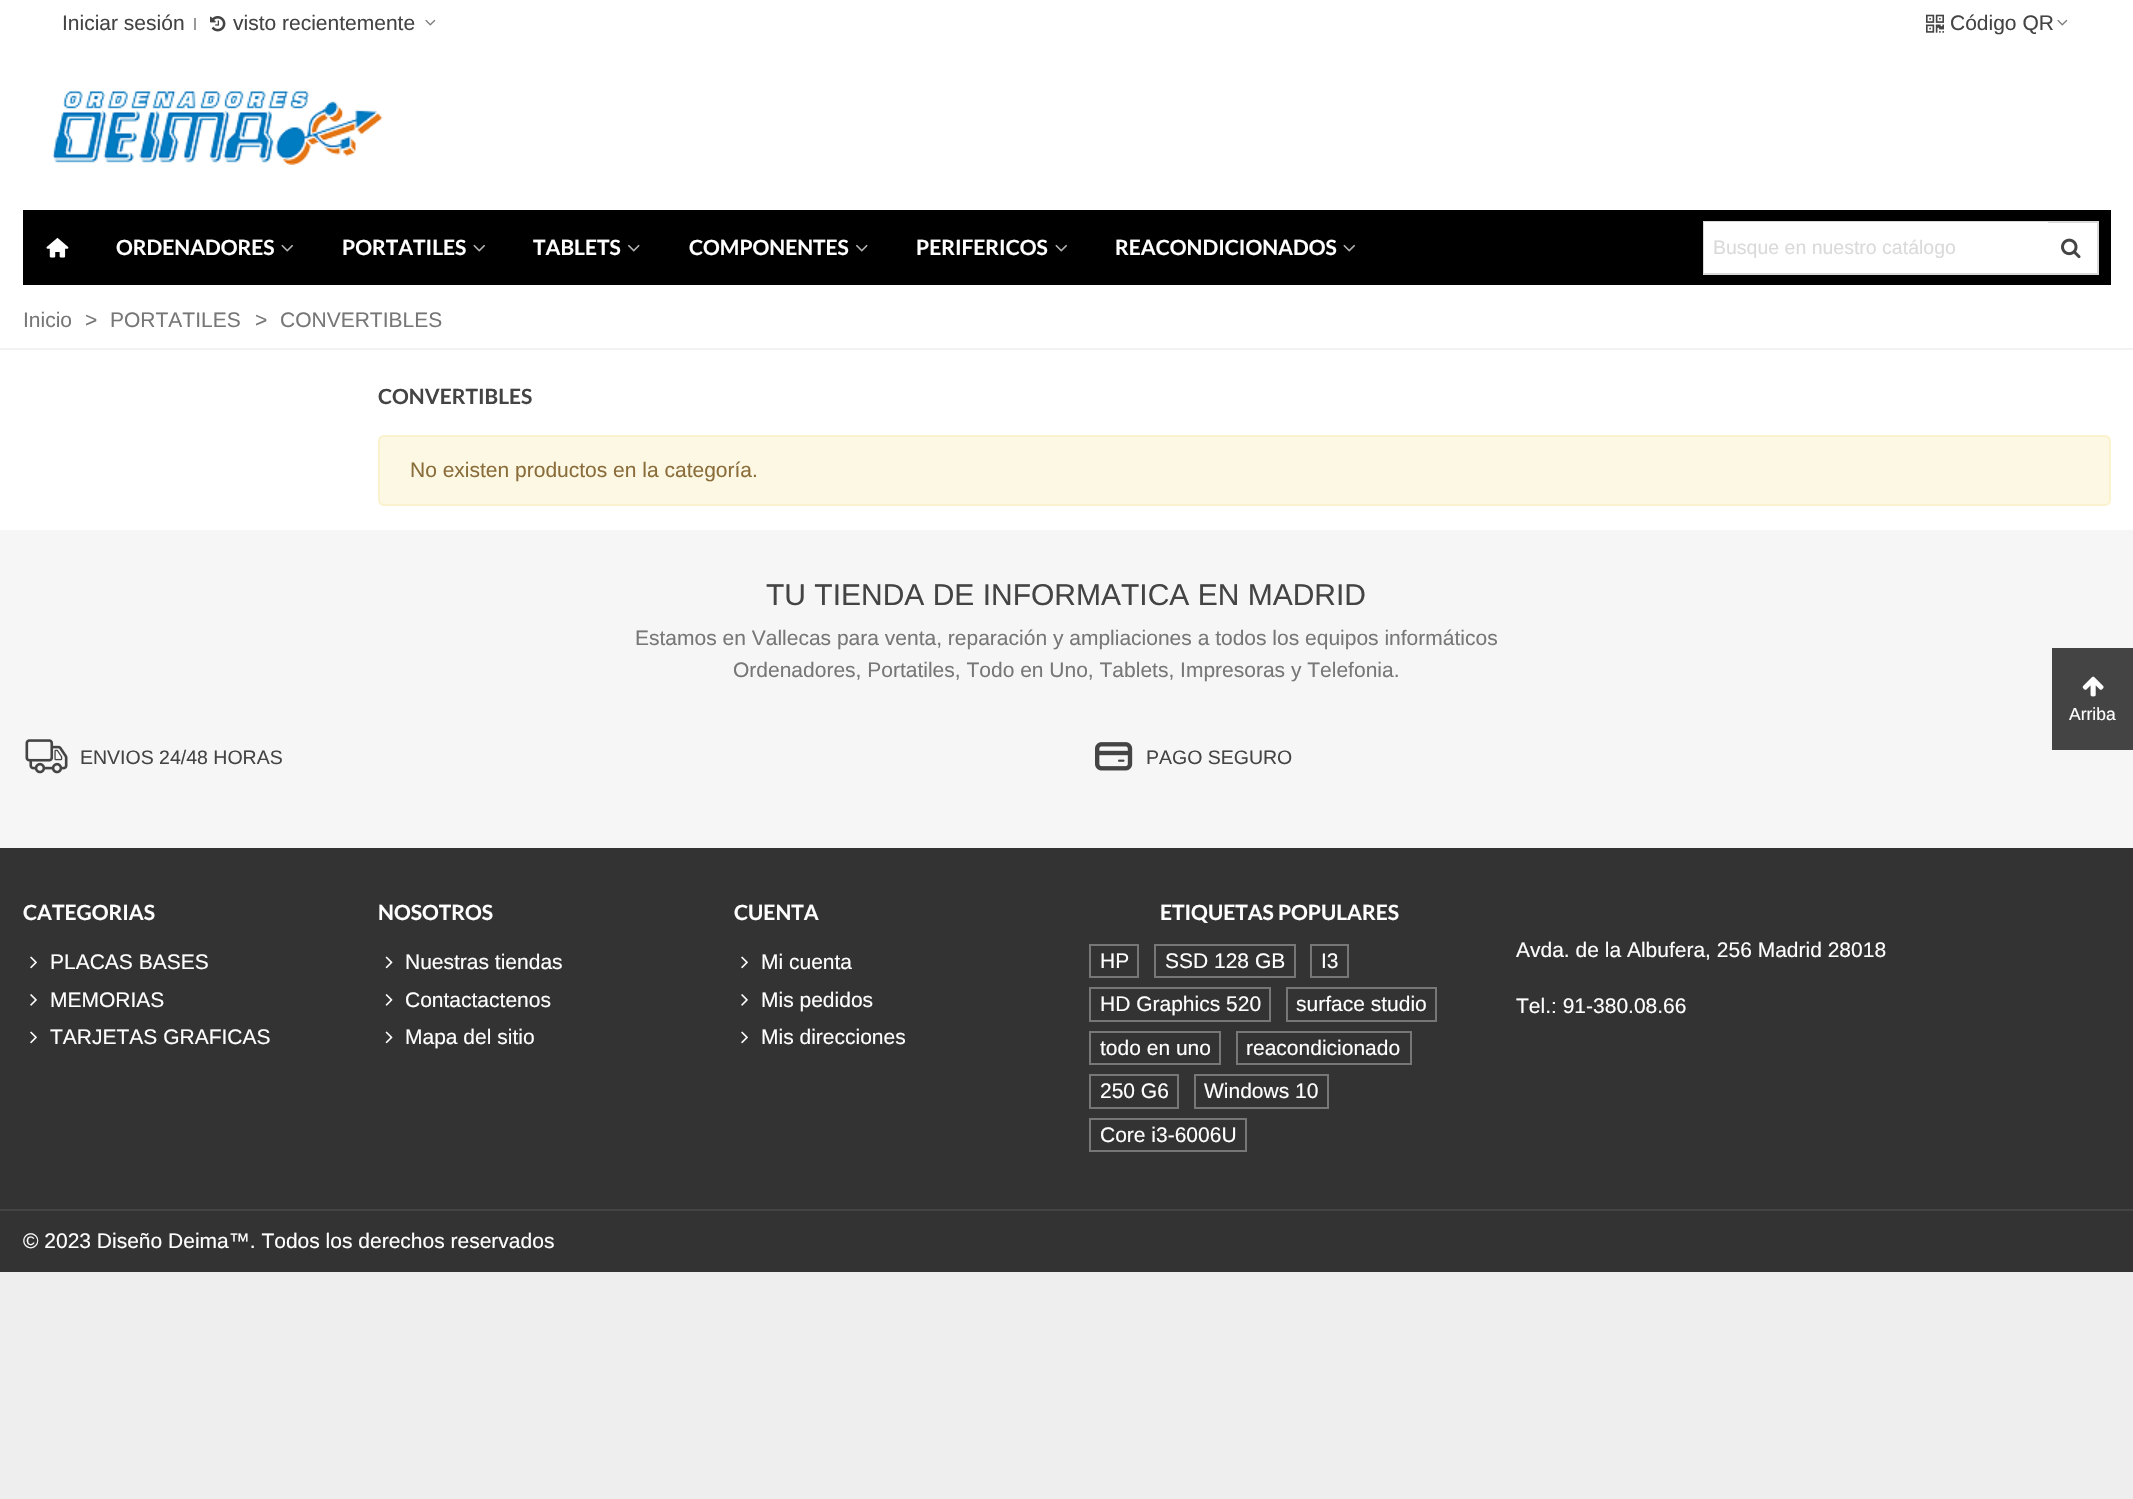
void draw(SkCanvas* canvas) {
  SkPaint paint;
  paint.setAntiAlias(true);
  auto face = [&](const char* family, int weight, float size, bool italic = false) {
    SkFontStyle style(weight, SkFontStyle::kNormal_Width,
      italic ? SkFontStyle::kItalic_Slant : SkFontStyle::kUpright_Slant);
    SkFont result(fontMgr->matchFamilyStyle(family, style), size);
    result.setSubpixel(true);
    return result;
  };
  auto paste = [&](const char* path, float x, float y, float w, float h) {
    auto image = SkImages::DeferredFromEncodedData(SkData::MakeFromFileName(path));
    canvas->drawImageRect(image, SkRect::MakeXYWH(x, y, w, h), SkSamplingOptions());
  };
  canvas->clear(0xffeeeeee);
  paint.setColor(0xffffffff);
  canvas->drawRect(SkRect::MakeXYWH(0, 0, 2133, 530), paint);
  paint.setColor(0xff999999);
  canvas->drawRect(SkRect::MakeXYWH(194, 18, 2, 12), paint);
  paste("img/1.png", 210, 16, 16, 16);
  paste("img/2.png", 425, 19, 11, 7);
  paste("img/3.png", 1926, 14, 18, 19);
  paste("img/2.png", 2057, 19, 11, 7);
  paste("img/4.png", 52, 90, 331, 75);
  paint.setColor(0xff000000);
  canvas->drawRect(SkRect::MakeXYWH(23, 210, 2088, 75), paint);
  paste("img/5.png", 46, 237, 23, 21);
  paste("img/6.png", 281, 244, 12, 8);
  paste("img/6.png", 473, 244, 12, 8);
  paste("img/7.png", 628, 244, 12, 8);
  paste("img/7.png", 856, 244, 12, 8);
  paste("img/6.png", 1055, 244, 12, 8);
  paste("img/6.png", 1343, 244, 12, 8);
  paint.setColor(0xffffffff);
  canvas->drawRect(SkRect::MakeXYWH(2048, 223, 49, 50), paint);
  paint.setStroke(true);
  paint.setStrokeWidth(2);
  paint.setColor(0xffd9d9d9);
  canvas->drawRect(SkRect::MakeXYWH(1704, 222, 394, 52), paint);
  paint.setStroke(false);
  paint.setColor(0xffffffff);
  canvas->drawRect(SkRect::MakeXYWH(1704, 222, 344, 51), paint);
  paste("img/8.png", 2061, 238, 20, 21);
  paint.setColor(0xfff2f2f2);
  canvas->drawRect(SkRect::MakeXYWH(0, 348, 2133, 2), paint);
  paint.setColor(0xfffcf8e3);
  canvas->drawRoundRect(SkRect::MakeXYWH(379, 436, 1731, 69), 5, 5, paint);
  paint.setStroke(true);
  paint.setColor(0xfffaf2cc);
  canvas->drawRoundRect(SkRect::MakeXYWH(379, 436, 1731, 69), 5, 5, paint);
  paint.setStroke(false);
  paint.setColor(0xfff6f6f6);
  canvas->drawRect(SkRect::MakeXYWH(0, 530, 2133, 318), paint);
  paste("img/9.png", 25, 739, 43, 35);
  paste("img/10.png", 1095, 742, 38, 29);
  paint.setColor(0xff333333);
  canvas->drawRect(SkRect::MakeXYWH(0, 848, 2133, 361), paint);
  paste("img/11.png", 30, 956, 7, 13);
  paste("img/12.png", 30, 994, 7, 12);
  paste("img/11.png", 30, 1031, 7, 13);
  paste("img/13.png", 385, 956, 8, 13);
  paste("img/14.png", 385, 994, 8, 12);
  paste("img/13.png", 385, 1031, 8, 13);
  paste("img/11.png", 741, 956, 7, 13);
  paste("img/12.png", 741, 994, 7, 12);
  paste("img/11.png", 741, 1031, 7, 13);
  paint.setStroke(true);
  paint.setColor(0xff777777);
  canvas->drawRect(SkRect::MakeXYWH(1090, 945, 48, 32), paint);
  canvas->drawRect(SkRect::MakeXYWH(1155, 945, 140, 32), paint);
  canvas->drawRect(SkRect::MakeXYWH(1311, 945, 37, 32), paint);
  canvas->drawRect(SkRect::MakeXYWH(1090, 988, 180, 33), paint);
  canvas->drawRect(SkRect::MakeXYWH(1287, 988, 149, 33), paint);
  canvas->drawRect(SkRect::MakeXYWH(1090, 1032, 130, 32), paint);
  canvas->drawRect(SkRect::MakeXYWH(1237, 1032, 174, 32), paint);
  canvas->drawRect(SkRect::MakeXYWH(1090, 1075, 88, 33), paint);
  canvas->drawRect(SkRect::MakeXYWH(1195, 1075, 133, 33), paint);
  canvas->drawRect(SkRect::MakeXYWH(1090, 1119, 156, 32), paint);
  paint.setStroke(false);
  {
    const struct { float x, y, w, h; SkColor color; } items[] = {
      {0, 1211, 2133, 61, 0xff333333},
      {0, 1209, 2133, 2, 0xff444444},
      {2052, 648, 81, 102, 0xff444444},
    };
    for (auto [x, y, w, h, color] : items) {
      paint.setColor(color);
      canvas->drawRect(SkRect::MakeXYWH(x, y, w, h), paint);
    }
  }
  paste("img/15.png", 2082, 676, 22, 21);
  auto f0 = face("Liberation Sans", 400, 21);
  {
    const struct { const char* s; float x, y; } items[] = {
      {"Iniciar sesión", 62, 30},
      {"visto recientemente", 233, 30},
      {"Código QR", 1950, 30},
    };
    for (auto [s, x, y] : items) {
      canvas->drawString(s, x, y, f0, paint);
    }
  }
  auto f1 = face("Lato", 700, 21);
  paint.setColor(0xffffffff);
  {
    const struct { const char* s; float x, y; } items[] = {
      {"ORDENADORES", 116, 255},
      {"PORTATILES", 342, 255},
      {"TABLETS", 533, 255},
      {"COMPONENTES", 689, 255},
      {"PERIFERICOS", 916, 255},
      {"REACONDICIONADOS", 1115, 255},
    };
    for (auto [s, x, y] : items) {
      canvas->drawString(s, x, y, f1, paint);
    }
  }
  auto f2 = face("Liberation Sans", 400, 19.5f);
  paint.setColor(0xffdadada);
  canvas->drawString("Busque en nuestro catálogo", 1713, 254, f2, paint);
  paint.setColor(0xff777777);
  {
    const struct { const char* s; float x, y; } items[] = {
      {"Inicio", 23, 327},
      {">", 85, 327},
      {"PORTATILES", 110, 327},
      {">", 255, 327},
      {"CONVERTIBLES", 280, 327},
    };
    for (auto [s, x, y] : items) {
      canvas->drawString(s, x, y, f0, paint);
    }
  }
  paint.setColor(0xff444444);
  canvas->drawString("CONVERTIBLES", 378, 404, f1, paint);
  paint.setColor(0xff8a6d3b);
  canvas->drawString("No existen productos en la categoría.", 410, 477, f0, paint);
  auto f3 = face("Liberation Sans", 400, 30);
  paint.setColor(0xff444444);
  canvas->drawString("TU TIENDA DE INFORMATICA EN MADRID", 766, 605, f3, paint);
  paint.setColor(0xff777777);
  canvas->drawString("Estamos en Vallecas para venta, reparación y ampliaciones a todos los equipos informáticos", 635, 645, f0, paint);
  canvas->drawString("Ordenadores, Portatiles, Todo en Uno, Tablets, Impresoras y Telefonia.", 733, 677, f0, paint);
  paint.setColor(0xff444444);
  canvas->drawString("ENVIOS 24/48 HORAS", 80, 764, f2, paint);
  canvas->drawString("PAGO SEGURO", 1146, 764, f2, paint);
  paint.setColor(0xffffffff);
  canvas->drawString("CATEGORIAS", 23, 920, f1, paint);
  {
    const struct { const char* s; float x, y; } items[] = {
      {"PLACAS BASES", 50, 969},
      {"MEMORIAS", 50, 1007},
      {"TARJETAS GRAFICAS", 50, 1044},
    };
    for (auto [s, x, y] : items) {
      canvas->drawString(s, x, y, f0, paint);
    }
  }
  canvas->drawString("NOSOTROS", 378, 920, f1, paint);
  {
    const struct { const char* s; float x, y; } items[] = {
      {"Nuestras tiendas", 405, 969},
      {"Contactactenos", 405, 1007},
      {"Mapa del sitio", 405, 1044},
    };
    for (auto [s, x, y] : items) {
      canvas->drawString(s, x, y, f0, paint);
    }
  }
  canvas->drawString("CUENTA", 734, 920, f1, paint);
  {
    const struct { const char* s; float x, y; } items[] = {
      {"Mi cuenta", 761, 969},
      {"Mis pedidos", 761, 1007},
      {"Mis direcciones", 761, 1044},
    };
    for (auto [s, x, y] : items) {
      canvas->drawString(s, x, y, f0, paint);
    }
  }
  canvas->drawString("ETIQUETAS POPULARES", 1160, 920, f1, paint);
  {
    const struct { const char* s; float x, y; } items[] = {
      {"HP", 1100, 968},
      {"SSD 128 GB", 1165, 968},
      {"I3", 1321, 968},
      {"HD Graphics 520", 1100, 1011},
      {"surface studio", 1296, 1011},
      {"todo en uno", 1100, 1055},
      {"reacondicionado", 1246, 1055},
      {"250 G6", 1100, 1098},
      {"Windows 10", 1204, 1098},
      {"Core i3-6006U", 1100, 1142},
      {"Avda. de la Albufera, 256 Madrid 28018", 1516, 957},
      {"Tel.: 91-380.08.66", 1516, 1013},
      {"© 2023 Diseño Deima™. Todos los derechos reservados", 23, 1248},
    };
    for (auto [s, x, y] : items) {
      canvas->drawString(s, x, y, f0, paint);
    }
  }
  auto f4 = face("Liberation Sans", 400, 17.5f);
  canvas->drawString("Arriba", 2069, 720, f4, paint);
}
